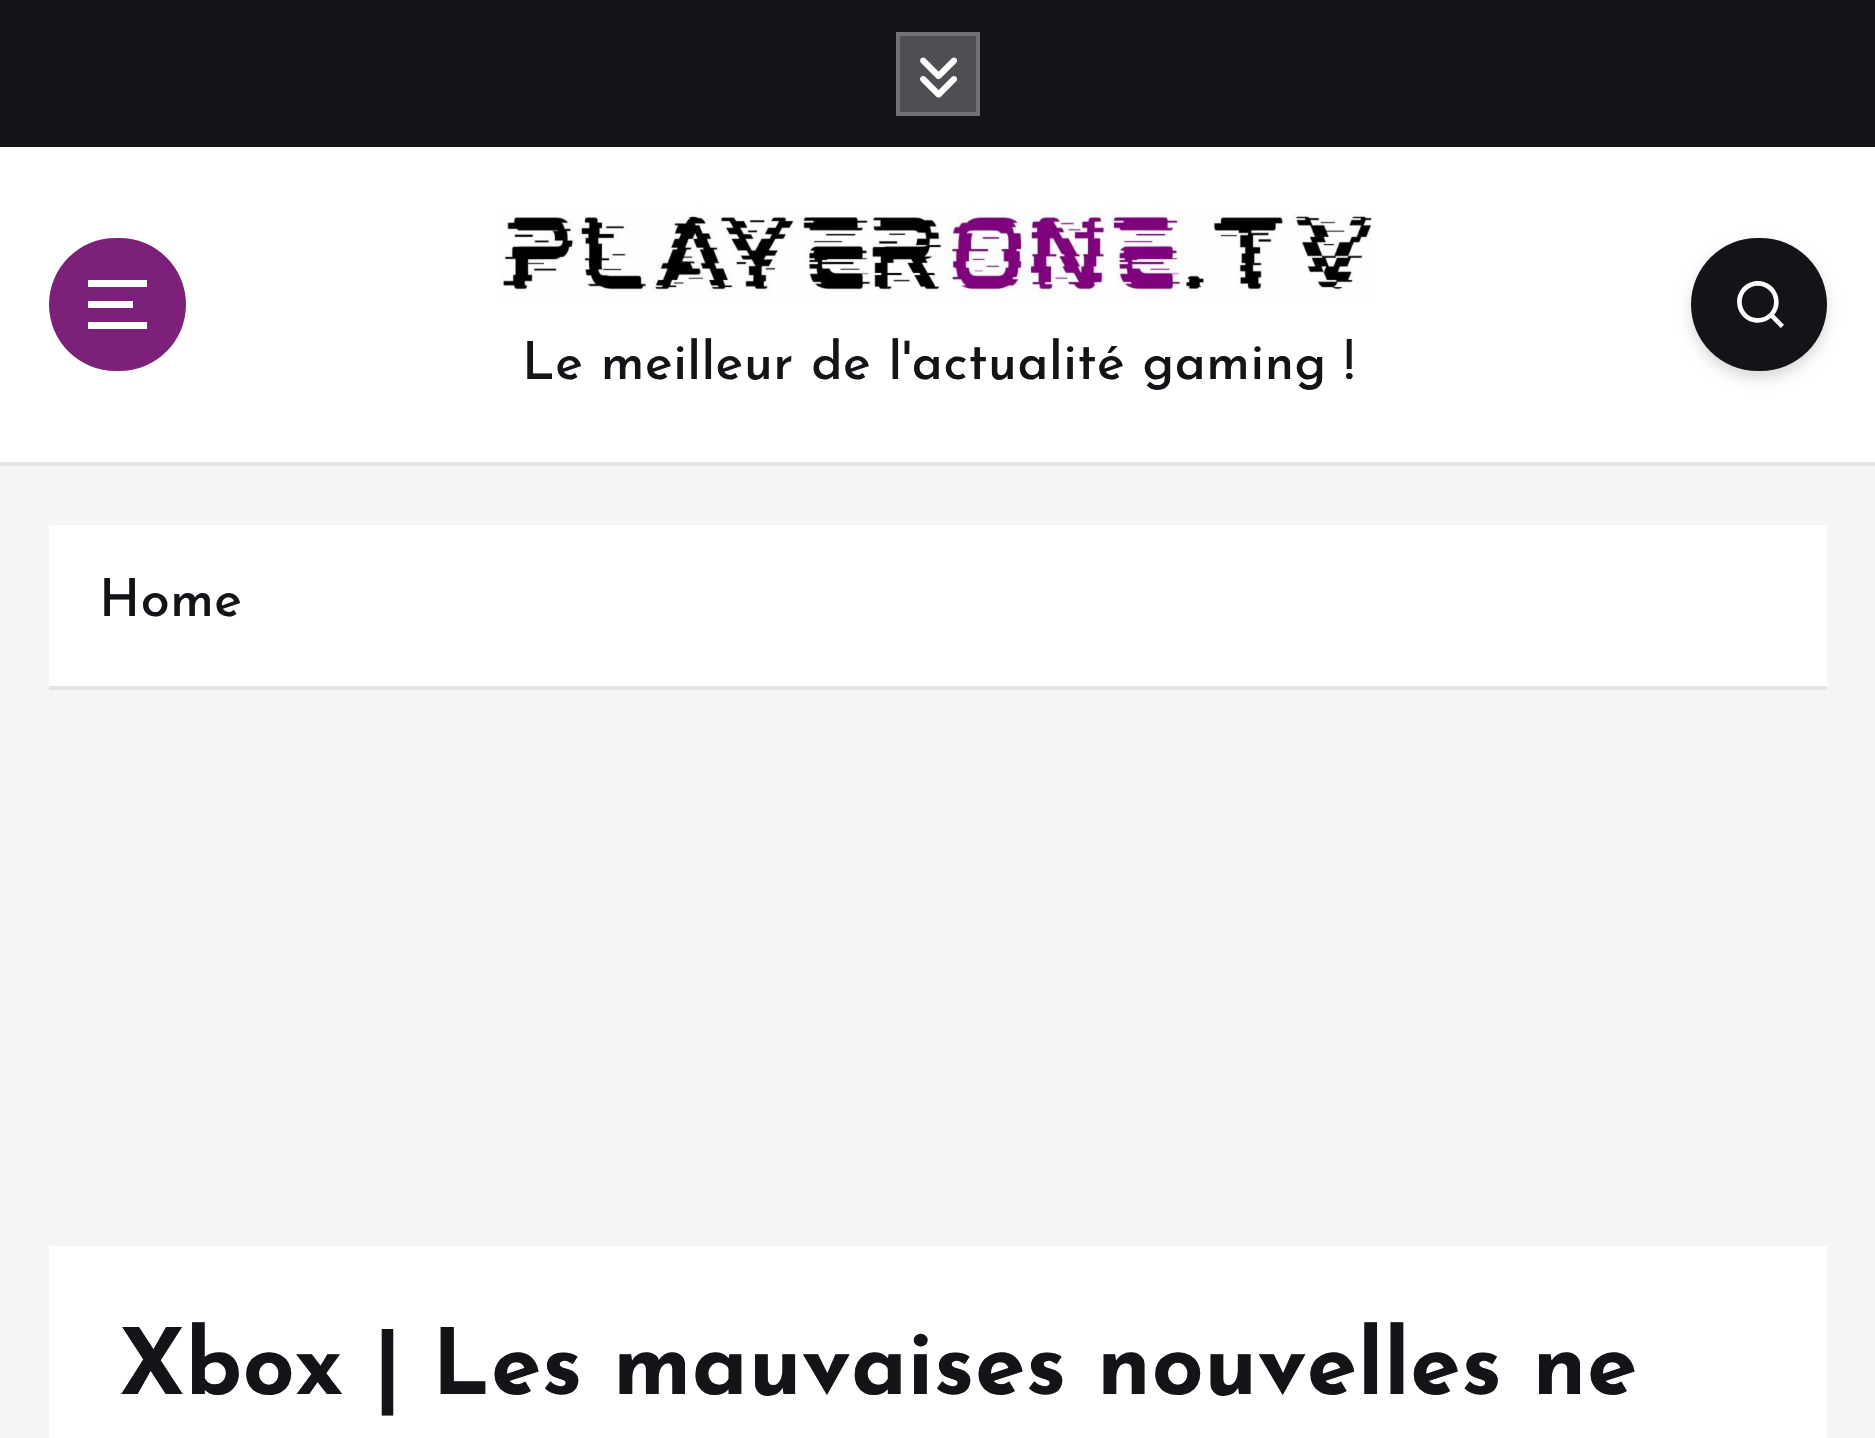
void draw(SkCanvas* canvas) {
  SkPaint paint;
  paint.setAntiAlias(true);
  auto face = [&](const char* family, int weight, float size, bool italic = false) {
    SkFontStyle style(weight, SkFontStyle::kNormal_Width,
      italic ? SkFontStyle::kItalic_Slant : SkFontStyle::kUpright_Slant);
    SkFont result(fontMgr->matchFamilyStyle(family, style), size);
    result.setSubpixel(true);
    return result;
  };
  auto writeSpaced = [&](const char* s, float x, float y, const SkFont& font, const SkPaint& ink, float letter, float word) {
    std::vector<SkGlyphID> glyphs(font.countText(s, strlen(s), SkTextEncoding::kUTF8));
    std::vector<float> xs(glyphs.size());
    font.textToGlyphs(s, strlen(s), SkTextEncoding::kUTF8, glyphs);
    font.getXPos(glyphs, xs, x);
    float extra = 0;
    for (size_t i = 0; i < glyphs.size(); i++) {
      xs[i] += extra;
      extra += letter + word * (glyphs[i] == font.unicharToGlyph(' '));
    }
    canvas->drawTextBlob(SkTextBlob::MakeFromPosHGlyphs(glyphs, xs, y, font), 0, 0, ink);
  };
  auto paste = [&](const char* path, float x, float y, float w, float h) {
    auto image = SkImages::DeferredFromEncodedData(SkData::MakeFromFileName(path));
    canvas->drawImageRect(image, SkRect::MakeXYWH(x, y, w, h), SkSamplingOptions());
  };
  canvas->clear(0xfff5f5f5);
  paint.setColor(0xffffffff);
  canvas->drawRect(SkRect::MakeXYWH(0, 147, 1875, 315), paint);
  paint.setColor(0xff121418);
  canvas->drawRect(SkRect::MakeXYWH(0, 0, 1875, 147), paint);
  paint.setColor(0xff4d4f52);
  canvas->drawRect(SkRect::MakeXYWH(898, 34, 80, 80), paint);
  paint.setStroke(true);
  paint.setStrokeWidth(4);
  paint.setColor(0xff717275);
  canvas->drawRect(SkRect::MakeXYWH(898, 34, 80, 80), paint);
  paste("img/1.png", 920, 57, 37, 41);
  paint.setStroke(false);
  paint.setColor(0xffe4e4e4);
  canvas->drawRect(SkRect::MakeXYWH(0, 462, 1875, 4), paint);
  paint.setColor(0xff7c207a);
  canvas->drawRoundRect(SkRect::MakeXYWH(49, 238, 137, 133), 66.5f, 66.5f, paint);
  {
    const struct { float x, y, w, h; SkColor color; } items[] = {
      {88, 280, 59, 7, 0xffffffff},
      {88, 301, 45, 7, 0xffffffff},
      {88, 322, 59, 7, 0xffffffff},
    };
    for (auto [x, y, w, h, color] : items) {
      paint.setColor(color);
      canvas->drawRect(SkRect::MakeXYWH(x, y, w, h), paint);
    }
  }
  paste("img/2.png", 499, 207, 873, 93);
  paint.setColor(0x26000000);
  paint.setMaskFilter(SkMaskFilter::MakeBlur(kNormal_SkBlurStyle, 7));
  canvas->drawRoundRect(SkRect::MakeXYWH(1691, 245, 136, 133), 66.5f, 66.5f, paint);
  paint.setMaskFilter(nullptr);
  paint.setColor(0xff121418);
  canvas->drawRoundRect(SkRect::MakeXYWH(1691, 238, 136, 133), 66.5f, 66.5f, paint);
  paste("img/3.png", 1737, 281, 47, 47);
  {
    const struct { float x, y, w, h; SkColor color; } items[] = {
      {49, 686, 1778, 4, 0xffe4e4e4},
      {49, 525, 1778, 161, 0xffffffff},
      {49, 1246, 1778, 192, 0xffffffff},
    };
    for (auto [x, y, w, h, color] : items) {
      paint.setColor(color);
      canvas->drawRect(SkRect::MakeXYWH(x, y, w, h), paint);
    }
  }
  auto f0 = face("Josefin Sans", 500, 52.5f);
  paint.setColor(0xff121418);
  writeSpaced("Le meilleur de l'actualité gaming !", 522, 379, f0, paint, 0.5f, 0);
  writeSpaced("Home", 99, 616, f0, paint, 0.5f, 0);
  auto f1 = face("Josefin Sans", 700, 91);
  writeSpaced("Xbox | Les mauvaises nouvelles ne", 119, 1394, f1, paint, 0.5f, 0);
}
